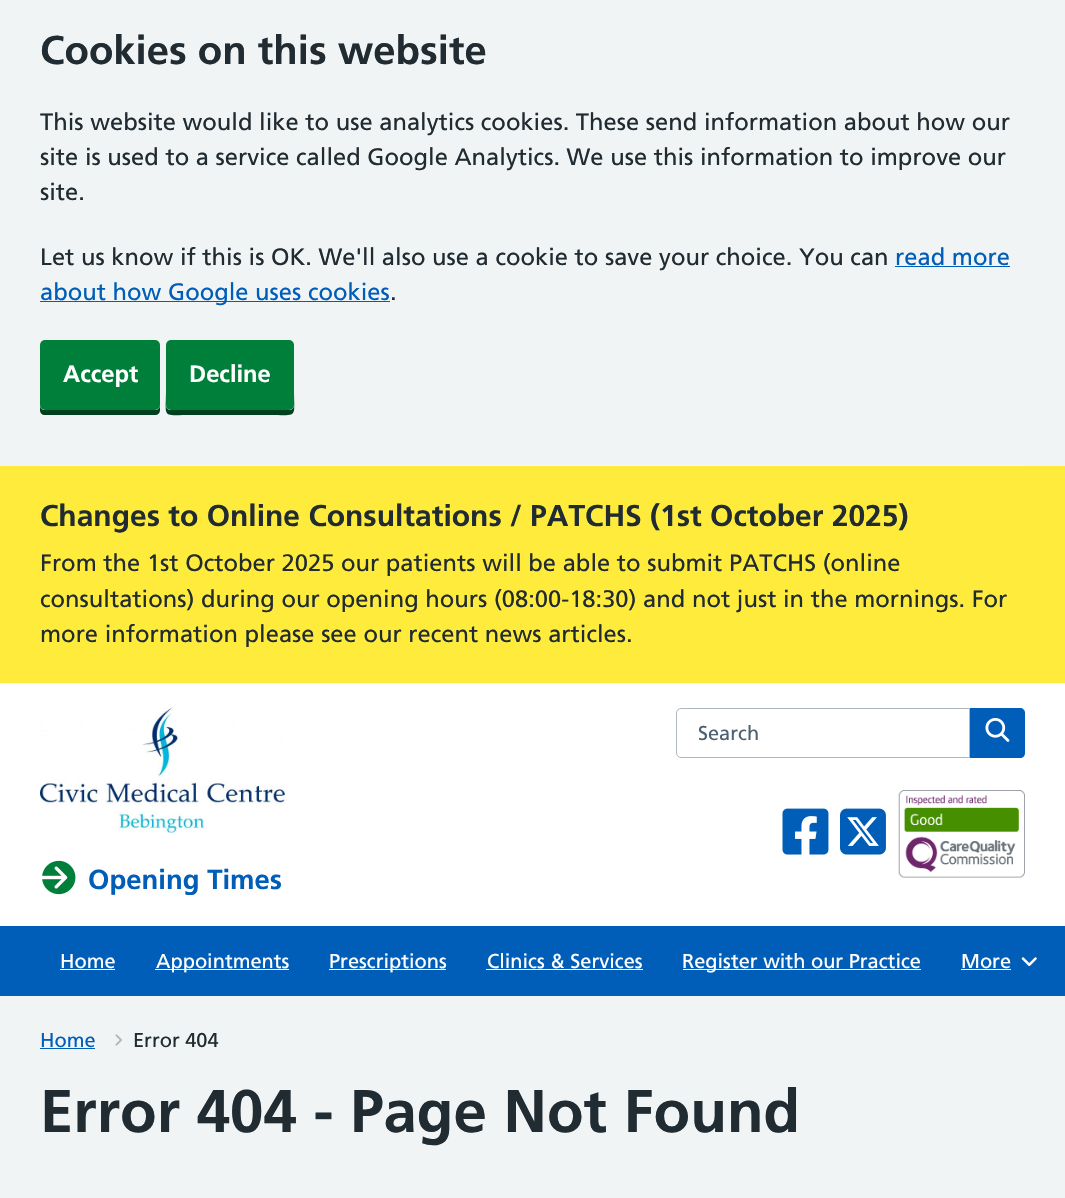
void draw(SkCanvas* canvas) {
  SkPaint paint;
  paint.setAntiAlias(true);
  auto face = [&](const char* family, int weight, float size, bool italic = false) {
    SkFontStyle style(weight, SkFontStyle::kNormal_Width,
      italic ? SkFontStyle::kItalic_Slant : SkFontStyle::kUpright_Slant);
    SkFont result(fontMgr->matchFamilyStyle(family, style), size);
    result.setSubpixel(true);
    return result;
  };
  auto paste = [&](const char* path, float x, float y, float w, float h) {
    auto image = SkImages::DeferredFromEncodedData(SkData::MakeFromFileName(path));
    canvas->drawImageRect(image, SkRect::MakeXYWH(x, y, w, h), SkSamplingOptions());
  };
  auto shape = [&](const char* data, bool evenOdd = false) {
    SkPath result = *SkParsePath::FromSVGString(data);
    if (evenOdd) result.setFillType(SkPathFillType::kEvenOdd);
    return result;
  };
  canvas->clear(0xfff0f4f5);
  {
    const struct { float x, y, w, h; SkColor color; } items[] = {
      {40, 465, 985, 1, 0xfff3f6f7},
      {895, 266, 115, 1, 0xff005eb8},
      {40, 301, 350, 1, 0xff005eb8},
    };
    for (auto [x, y, w, h, color] : items) {
      paint.setColor(color);
      canvas->drawRect(SkRect::MakeXYWH(x, y, w, h), paint);
    }
  }
  paint.setColor(0xff00401e);
  canvas->drawPath(shape("M40 405V410C40 413 42 415 45 415H155C158 415 160 413 160 410V405C160 408 158 410 155 410H45C42 410 40 408 40 405Z"), paint);
  paint.setColor(0xff007f3b);
  canvas->drawRoundRect(SkRect::MakeXYWH(40, 340, 120, 70), 5, 5, paint);
  paint.setColor(0xff00401e);
  canvas->drawPath(shape("M166 348V390C166 419 161 415 191 415H269C299 415 294 419 294 390V348V405C294 408 292 410 289 410H171C168 410 166 408 166 405Z"), paint);
  paint.setColor(0xff007f3b);
  canvas->drawRoundRect(SkRect::MakeXYWH(166, 340, 128, 70), 5, 5, paint);
  paint.setColor(0xffffeb3b);
  canvas->drawRect(SkRect::MakeXYWH(0, 466, 1065, 217), paint);
  paint.setColor(0xffffffff);
  canvas->drawRect(SkRect::MakeXYWH(0, 683, 1065, 243), paint);
  paint.setStroke(true);
  paint.setStrokeWidth(1);
  paint.setColor(0xffaeb7bd);
  canvas->drawPath(shape("M681 708.5H969.5V757.5H681C678.5 757.5 676.5 755.5 676.5 753V713C676.5 710.5 678.5 708.5 681 708.5Z"), paint);
  paint.setStroke(false);
  paint.setColor(0xff005eb8);
  canvas->drawPath(shape("M970 708H1020C1023 708 1025 710 1025 713V753C1025 756 1023 758 1020 758H970Z"), paint);
  paste("img/1.png", 985, 718, 25, 24);
  paste("img/2.png", 782, 808, 47, 47);
  paste("img/3.png", 840, 808, 46, 47);
  paste("img/4.png", 898, 790, 127, 88);
  paste("img/5.png", 40, 707, 245, 126);
  paste("img/6.png", 42, 860, 34, 35);
  {
    const struct { float x, y, w, h; SkColor color; } items[] = {
      {0, 926, 1065, 70, 0xff005eb8},
      {60, 969, 55, 1, 0xffffffff},
      {155, 969, 134, 1, 0xffffffff},
      {329, 969, 117, 1, 0xffffffff},
      {486, 969, 157, 1, 0xffffffff},
      {683, 969, 238, 1, 0xffffffff},
      {961, 969, 50, 1, 0xffffffff},
    };
    for (auto [x, y, w, h, color] : items) {
      paint.setColor(color);
      canvas->drawRect(SkRect::MakeXYWH(x, y, w, h), paint);
    }
  }
  paste("img/7.png", 1021, 957, 16, 9);
  paint.setColor(0xff005eb8);
  canvas->drawRect(SkRect::MakeXYWH(40, 1048, 55, 1), paint);
  paste("img/8.png", 115, 1034, 7, 12);
  auto f0 = face("Frutiger", 700, 40);
  paint.setColor(0xff212b32);
  canvas->drawString("Cookies on this website", 40, 64, f0, paint);
  auto f1 = face("Frutiger", 400, 23.75f);
  {
    const struct { const char* s; float x, y; } items[] = {
      {"This website would like to use analytics cookies. These send information about how our", 40, 130},
      {"site is used to a service called Google Analytics. We use this information to improve our", 40, 165},
      {"site.", 40, 200},
      {"Let us know if this is OK. We'll also use a cookie to save your choice. You can", 40, 265},
    };
    for (auto [s, x, y] : items) {
      canvas->drawString(s, x, y, f1, paint);
    }
  }
  paint.setColor(0xff005eb8);
  canvas->drawString("read more", 895, 265, f1, paint);
  canvas->drawString("about how Google uses cookies", 40, 300, f1, paint);
  paint.setColor(0xff212b32);
  canvas->drawString(".", 390, 300, f1, paint);
  auto f2 = face("Frutiger", 700, 23.75f);
  paint.setColor(0xffffffff);
  canvas->drawString("Accept", 63, 382, f2, paint);
  canvas->drawString("Decline", 189, 382, f2, paint);
  auto f3 = face("Frutiger", 700, 30);
  paint.setColor(0xff212b32);
  canvas->drawString("Changes to Online Consultations / PATCHS (1st October 2025)", 40, 526, f3, paint);
  {
    const struct { const char* s; float x, y; } items[] = {
      {"From the 1st October 2025 our patients will be able to submit PATCHS (online", 40, 571},
      {"consultations) during our opening hours (08:00-18:30) and not just in the mornings. For", 40, 607},
      {"more information please see our recent news articles.", 40, 642},
    };
    for (auto [s, x, y] : items) {
      canvas->drawString(s, x, y, f1, paint);
    }
  }
  auto f4 = face("Frutiger", 400, 20);
  paint.setColor(0xff4c6272);
  canvas->drawString("Search", 698, 740, f4, paint);
  auto f5 = face("Frutiger", 700, 27.5f);
  paint.setColor(0xff005eb8);
  canvas->drawString("Opening Times", 88, 889, f5, paint);
  paint.setColor(0xffffffff);
  {
    const struct { const char* s; float x, y; } items[] = {
      {"Home", 60, 968},
      {"Appointments", 156, 968},
      {"Prescriptions", 329, 968},
      {"Clinics & Services", 487, 968},
      {"Register with our Practice", 682, 968},
      {"More", 961, 968},
    };
    for (auto [s, x, y] : items) {
      canvas->drawString(s, x, y, f4, paint);
    }
  }
  paint.setColor(0xff005eb8);
  canvas->drawString("Home", 40, 1047, f4, paint);
  paint.setColor(0xff212b32);
  canvas->drawString("Error 404", 133, 1047, f4, paint);
  auto f6 = face("Frutiger", 700, 60);
  canvas->drawString("Error 404 - Page Not Found", 40, 1132, f6, paint);
}
